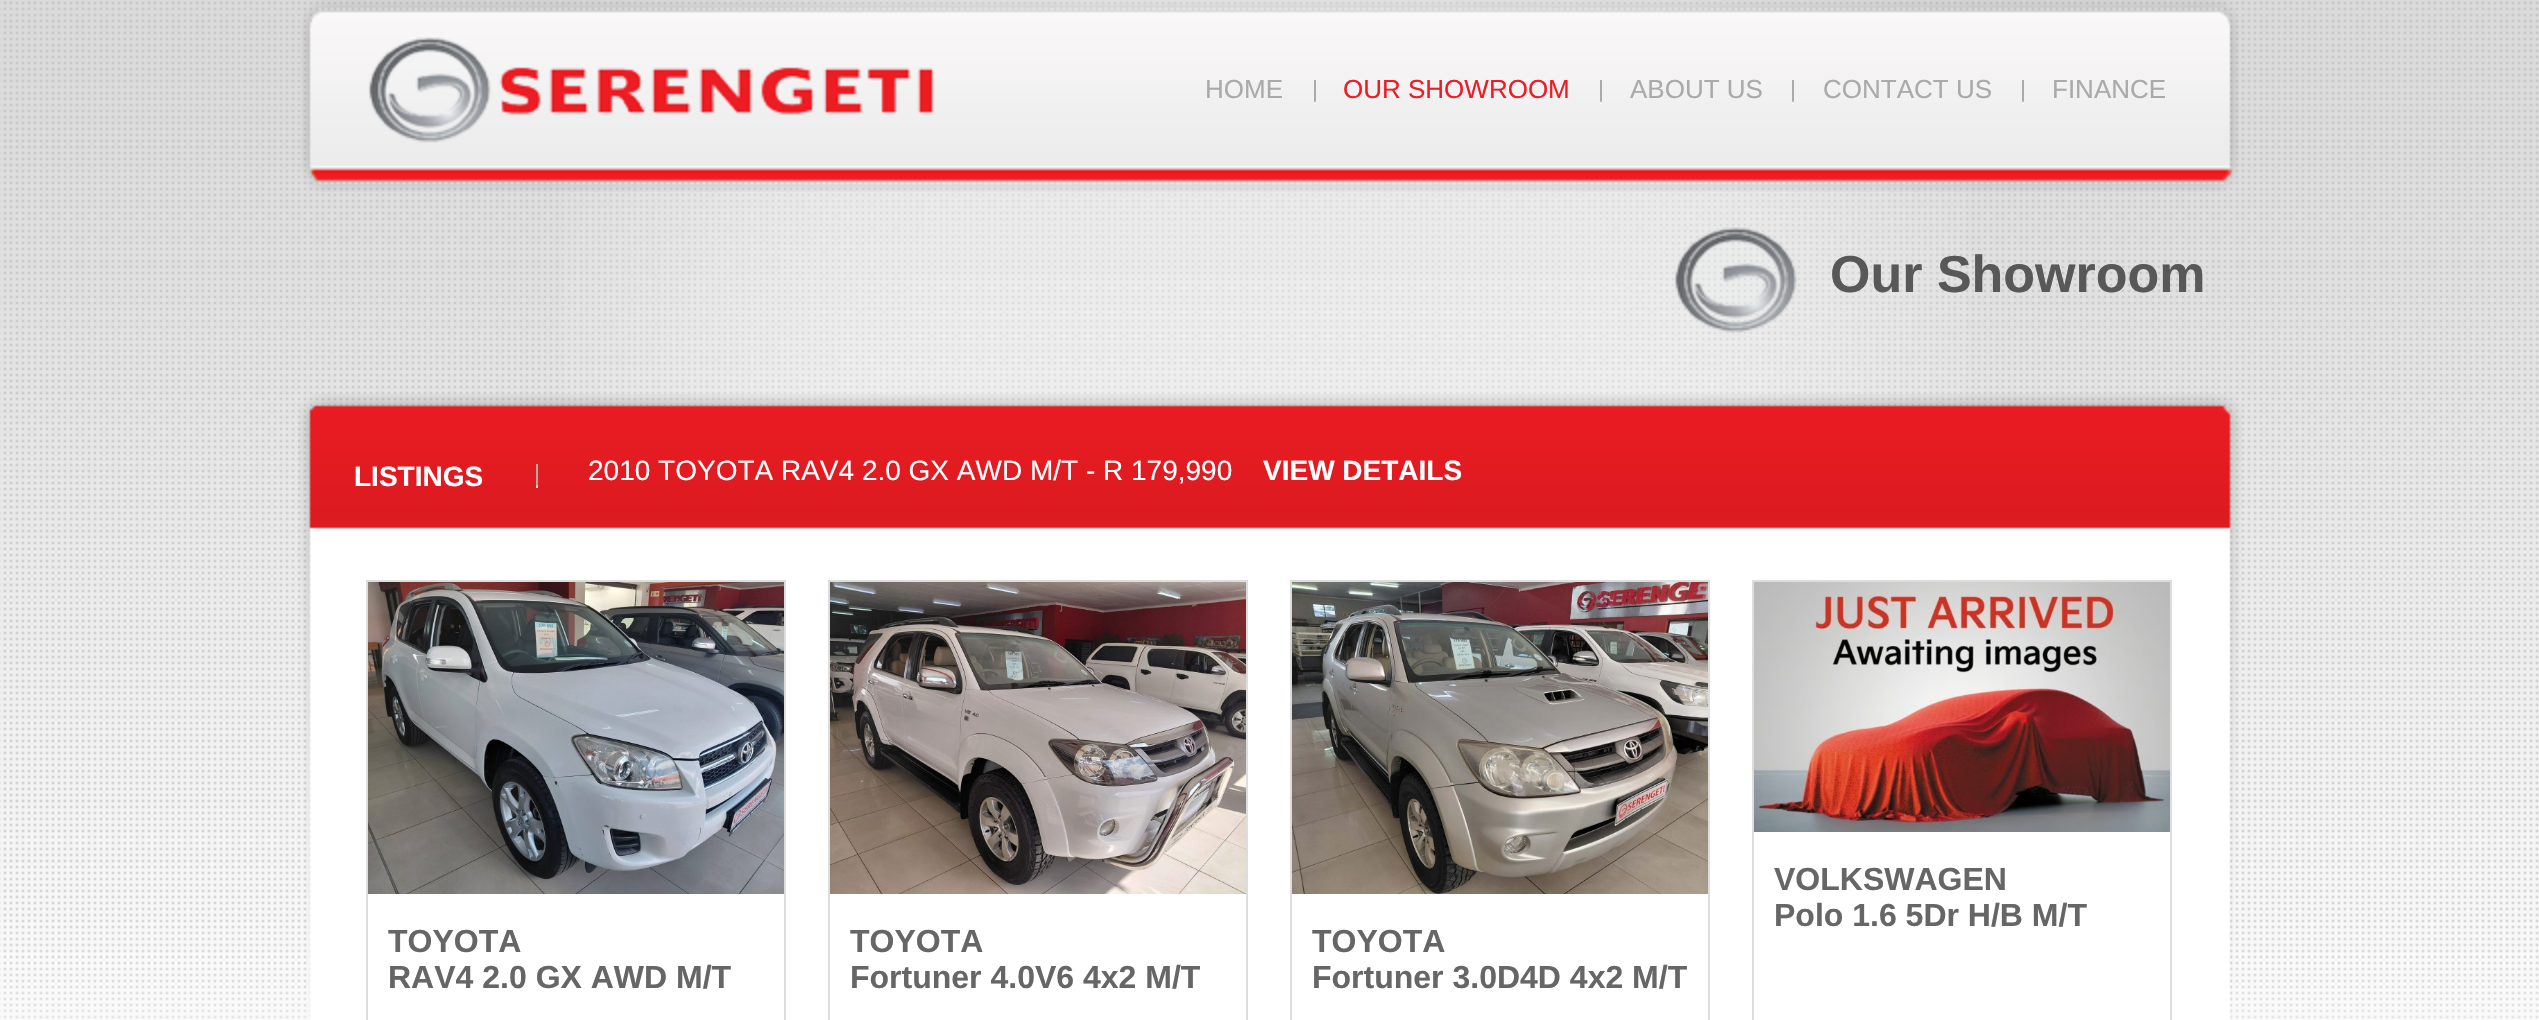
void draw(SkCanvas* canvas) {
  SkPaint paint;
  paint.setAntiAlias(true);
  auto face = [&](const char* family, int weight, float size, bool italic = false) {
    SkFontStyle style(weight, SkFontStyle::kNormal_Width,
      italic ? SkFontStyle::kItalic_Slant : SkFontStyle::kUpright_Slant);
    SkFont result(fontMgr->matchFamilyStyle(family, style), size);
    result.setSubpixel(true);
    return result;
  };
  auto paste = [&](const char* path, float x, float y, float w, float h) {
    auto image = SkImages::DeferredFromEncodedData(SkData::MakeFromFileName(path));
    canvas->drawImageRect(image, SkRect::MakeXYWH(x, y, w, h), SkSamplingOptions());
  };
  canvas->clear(0xffffffff);
  paste("img/1.png", 0, 0, 2539, 1020);
  paste("img/2.png", 562, 0, 1405, 407);
  paste("img/3.png", 301, 0, 1938, 192);
  paste("img/4.png", 368, 37, 567, 106);
  paste("img/5.png", 1314, 80, 2, 24);
  paste("img/5.png", 1600, 80, 2, 24);
  paste("img/5.png", 1792, 80, 2, 24);
  paste("img/5.png", 2022, 80, 2, 24);
  paste("img/6.png", 1674, 227, 123, 106);
  paste("img/7.png", 298, 394, 1944, 626);
  paste("img/5.png", 536, 464, 2, 24);
  paint.setStroke(true);
  paint.setStrokeWidth(2);
  paint.setColor(0xffdddddd);
  canvas->drawRect(SkRect::MakeXYWH(1753, 581, 418, 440), paint);
  paste("img/8.png", 1754, 582, 416, 250);
  canvas->drawRect(SkRect::MakeXYWH(367, 581, 418, 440), paint);
  paste("img/9.png", 368, 582, 416, 312);
  canvas->drawRect(SkRect::MakeXYWH(829, 581, 418, 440), paint);
  paste("img/10.png", 830, 582, 416, 312);
  canvas->drawRect(SkRect::MakeXYWH(1291, 581, 418, 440), paint);
  paste("img/11.png", 1292, 582, 416, 312);
  auto f0 = face("Liberation Sans", 400, 26);
  paint.setStroke(false);
  paint.setColor(0xffaaaaaa);
  canvas->drawString("HOME", 1205, 98, f0, paint);
  paint.setColor(0xffee1c25);
  canvas->drawString("OUR SHOWROOM", 1343, 98, f0, paint);
  paint.setColor(0xffaaaaaa);
  {
    const struct { const char* s; float x, y; } items[] = {
      {"ABOUT US", 1630, 98},
      {"CONTACT US", 1823, 98},
      {"FINANCE", 2052, 98},
    };
    for (auto [s, x, y] : items) {
      canvas->drawString(s, x, y, f0, paint);
    }
  }
  auto f1 = face("Liberation Sans", 700, 52);
  paint.setColor(0xff585858);
  canvas->drawString("Our Showroom", 1830, 292, f1, paint);
  auto f2 = face("Liberation Sans", 700, 28);
  paint.setColor(0xffffffff);
  canvas->drawString("LISTINGS", 354, 486, f2, paint);
  auto f3 = face("Liberation Sans", 400, 28);
  canvas->drawString("2010 TOYOTA RAV4 2.0 GX AWD M/T - R 179,990", 588, 480, f3, paint);
  canvas->drawString("VIEW DETAILS", 1263, 480, f2, paint);
  auto f4 = face("Liberation Sans", 700, 32);
  paint.setColor(0xff666666);
  {
    const struct { const char* s; float x, y; } items[] = {
      {"VOLKSWAGEN", 1774, 890},
      {"Polo 1.6 5Dr H/B M/T", 1774, 926},
      {"TOYOTA", 388, 952},
      {"RAV4 2.0 GX AWD M/T", 388, 988},
      {"TOYOTA", 850, 952},
      {"Fortuner 4.0V6 4x2 M/T", 850, 988},
      {"TOYOTA", 1312, 952},
      {"Fortuner 3.0D4D 4x2 M/T", 1312, 988},
    };
    for (auto [s, x, y] : items) {
      canvas->drawString(s, x, y, f4, paint);
    }
  }
}
